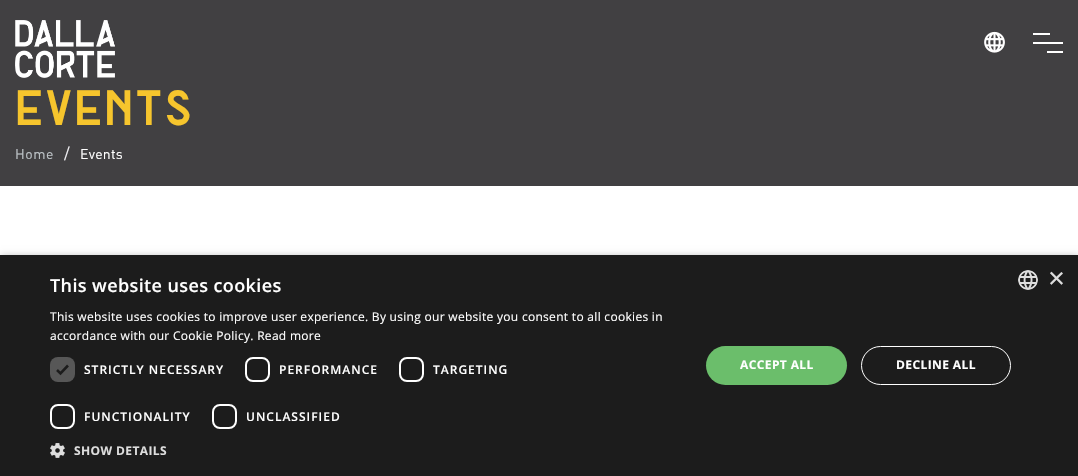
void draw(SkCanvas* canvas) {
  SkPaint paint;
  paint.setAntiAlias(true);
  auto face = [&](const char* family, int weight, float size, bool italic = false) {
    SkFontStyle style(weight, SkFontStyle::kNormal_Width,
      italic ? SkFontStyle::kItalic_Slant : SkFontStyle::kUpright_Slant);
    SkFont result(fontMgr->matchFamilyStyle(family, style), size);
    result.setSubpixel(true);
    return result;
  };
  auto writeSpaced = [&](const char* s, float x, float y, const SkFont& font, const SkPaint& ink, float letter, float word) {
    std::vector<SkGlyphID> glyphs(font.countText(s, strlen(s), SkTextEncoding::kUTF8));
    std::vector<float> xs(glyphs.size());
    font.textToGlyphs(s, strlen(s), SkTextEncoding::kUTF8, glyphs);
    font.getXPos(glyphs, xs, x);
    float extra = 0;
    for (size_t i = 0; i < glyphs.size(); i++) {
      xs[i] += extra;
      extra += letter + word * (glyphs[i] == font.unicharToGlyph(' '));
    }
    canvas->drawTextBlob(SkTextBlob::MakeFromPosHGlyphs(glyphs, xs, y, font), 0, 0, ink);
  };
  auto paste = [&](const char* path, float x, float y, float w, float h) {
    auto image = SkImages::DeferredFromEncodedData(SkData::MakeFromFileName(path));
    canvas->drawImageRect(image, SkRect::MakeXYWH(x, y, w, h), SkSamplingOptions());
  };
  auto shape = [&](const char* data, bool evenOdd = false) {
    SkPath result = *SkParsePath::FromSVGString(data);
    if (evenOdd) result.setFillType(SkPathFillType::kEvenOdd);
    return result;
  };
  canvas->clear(0xffffffff);
  paint.setColor(0xff414042);
  canvas->drawRect(SkRect::MakeXYWH(0, 0, 1078, 186), paint);
  paste("img/1.png", 15, 20, 100, 58);
  paste("img/2.png", 984, 31, 21, 22);
  {
    const struct { float x, y, w, h; SkColor color; } items[] = {
      {1033, 33, 17, 2, 0xffffffff},
      {1033, 42, 30, 2, 0xffffffff},
      {1047, 51, 16, 2, 0xffffffff},
    };
    for (auto [x, y, w, h, color] : items) {
      paint.setColor(color);
      canvas->drawRect(SkRect::MakeXYWH(x, y, w, h), paint);
    }
  }
  paint.setColor(0x59000000);
  paint.setMaskFilter(SkMaskFilter::MakeBlur(kNormal_SkBlurStyle, 4));
  canvas->drawRect(SkRect::MakeXYWH(1, 257, 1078, 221), paint);
  paint.setMaskFilter(nullptr);
  paint.setColor(0xff1c1c1c);
  canvas->drawRect(SkRect::MakeXYWH(0, 255, 1078, 221), paint);
  paint.setColor(0xff575757);
  canvas->drawRoundRect(SkRect::MakeXYWH(50, 357, 25, 25), 8, 8, paint);
  paint.setStroke(true);
  paint.setStrokeWidth(2.6f);
  paint.setColor(0xff1c1c1c);
  canvas->drawPath(shape("M57 370L60.5 373.5L68 365.5"), paint);
  paint.setStrokeWidth(2);
  paint.setColor(0xffffffff);
  canvas->drawRoundRect(SkRect::MakeXYWH(246, 358, 23, 23), 7, 7, paint);
  canvas->drawRoundRect(SkRect::MakeXYWH(400, 358, 23, 23), 7, 7, paint);
  canvas->drawRoundRect(SkRect::MakeXYWH(51, 405, 23, 23), 7, 7, paint);
  canvas->drawRoundRect(SkRect::MakeXYWH(213, 405, 23, 23), 7, 7, paint);
  paste("img/3.png", 50, 443, 15, 15);
  paint.setStroke(false);
  paint.setColor(0xff6bbe6b);
  canvas->drawRoundRect(SkRect::MakeXYWH(706, 346, 141, 39), 19.5f, 19.5f, paint);
  paint.setStroke(true);
  paint.setStrokeWidth(1);
  paint.setColor(0xffffffff);
  canvas->drawRoundRect(SkRect::MakeXYWH(861.5f, 346.5f, 149, 38), 19, 19, paint);
  paste("img/4.png", 1018, 270, 20, 20);
  auto f0 = face("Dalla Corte", 600, 48);
  paint.setStroke(false);
  paint.setColor(0xfff6c52d);
  writeSpaced("EVENTS", 15, 125, f0, paint, 1, 0);
  auto f1 = face("DIN", 400, 14);
  paint.setColor(0xffbdc3c7);
  writeSpaced("Home", 15, 159, f1, paint, 0.5f, 0);
  auto f2 = face("DIN", 400, 16);
  paint.setColor(0xfff0eff3);
  writeSpaced("/", 64, 159, f2, paint, 0.25f, 0);
  paint.setColor(0xffffffff);
  writeSpaced("Events", 80, 159, f1, paint, 0.25f, 0);
  auto f3 = face("Open Sans", 600, 18);
  writeSpaced("This website uses cookies", 50, 292, f3, paint, 0.4f, 0);
  auto f4 = face("Open Sans", 400, 12);
  writeSpaced("This website uses cookies to improve user experience. By using our website you consent to all cookies in", 50, 321, f4, paint, 0.3f, 0);
  writeSpaced("accordance with our Cookie Policy. Read more", 50, 340, f4, paint, 0.3f, 0);
  auto f5 = face("Open Sans", 600, 12);
  {
    const struct { const char* s; float x, y; } items[] = {
      {"STRICTLY NECESSARY", 84, 374},
      {"PERFORMANCE", 279, 374},
      {"TARGETING", 433, 374},
      {"FUNCTIONALITY", 84, 421},
      {"UNCLASSIFIED", 246, 421},
    };
    for (auto [s, x, y] : items) {
      writeSpaced(s, x, y, f5, paint, 1, 0);
    }
  }
  auto f6 = face("Open Sans", 700, 12);
  paint.setColor(0xffdddddd);
  writeSpaced("SHOW DETAILS", 74, 455, f6, paint, 0.4f, 0);
  paint.setColor(0xffffffff);
  writeSpaced("ACCEPT ALL", 740, 369, f6, paint, 0.4f, 0);
  writeSpaced("DECLINE ALL", 896, 369, f6, paint, 0.4f, 0);
  auto f7 = face("Liberation Sans", 400, 29);
  paint.setColor(0xffdddddd);
  canvas->drawString("×", 1048, 288, f7, paint);
}
